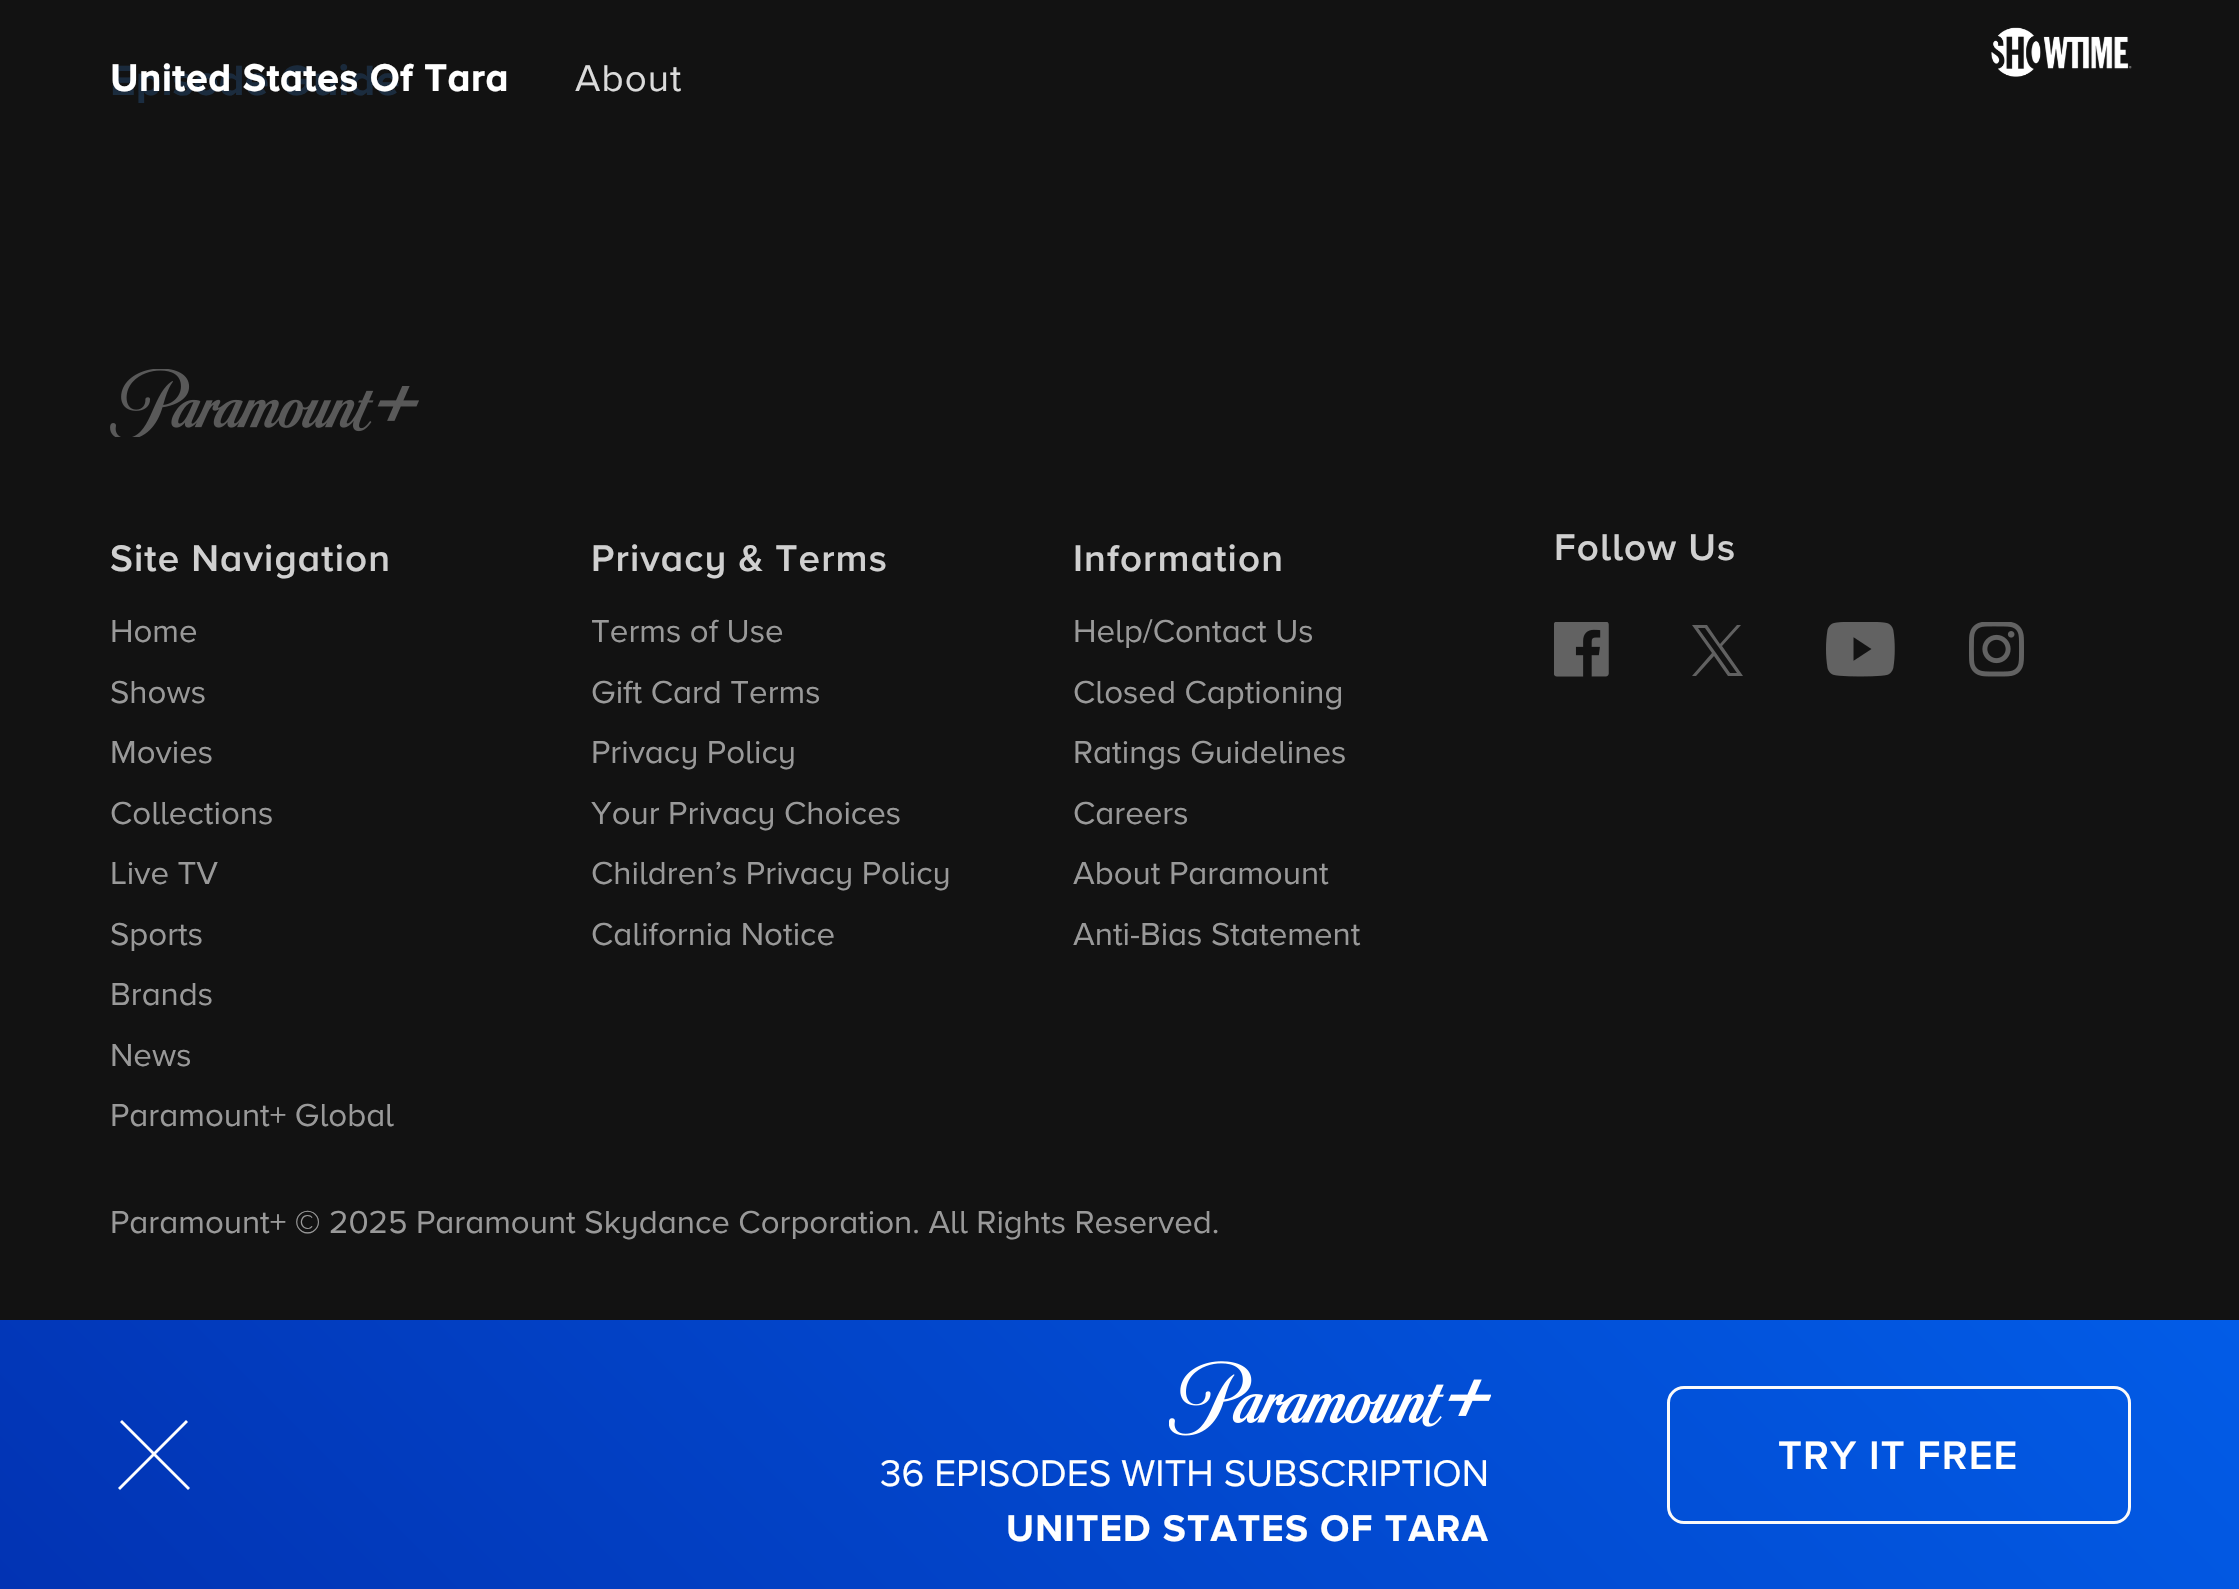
void draw(SkCanvas* canvas) {
  SkPaint paint;
  paint.setAntiAlias(true);
  auto face = [&](const char* family, int weight, float size, bool italic = false) {
    SkFontStyle style(weight, SkFontStyle::kNormal_Width,
      italic ? SkFontStyle::kItalic_Slant : SkFontStyle::kUpright_Slant);
    SkFont result(fontMgr->matchFamilyStyle(family, style), size);
    result.setSubpixel(true);
    return result;
  };
  auto writeSpaced = [&](const char* s, float x, float y, const SkFont& font, const SkPaint& ink, float letter, float word) {
    std::vector<SkGlyphID> glyphs(font.countText(s, strlen(s), SkTextEncoding::kUTF8));
    std::vector<float> xs(glyphs.size());
    font.textToGlyphs(s, strlen(s), SkTextEncoding::kUTF8, glyphs);
    font.getXPos(glyphs, xs, x);
    float extra = 0;
    for (size_t i = 0; i < glyphs.size(); i++) {
      xs[i] += extra;
      extra += letter + word * (glyphs[i] == font.unicharToGlyph(' '));
    }
    canvas->drawTextBlob(SkTextBlob::MakeFromPosHGlyphs(glyphs, xs, y, font), 0, 0, ink);
  };
  auto paste = [&](const char* path, float x, float y, float w, float h) {
    auto image = SkImages::DeferredFromEncodedData(SkData::MakeFromFileName(path));
    canvas->drawImageRect(image, SkRect::MakeXYWH(x, y, w, h), SkSamplingOptions());
  };
  auto shape = [&](const char* data, bool evenOdd = false) {
    SkPath result = *SkParsePath::FromSVGString(data);
    if (evenOdd) result.setFillType(SkPathFillType::kEvenOdd);
    return result;
  };
  canvas->clear(0xff121212);
  paste("img/1.png", 1991, 27, 141, 50);
  {
    const SkColor colors[] = {0xff0233b3, 0xff025ce7};
    const float stops[] = {0, 1};
    const SkPoint ends[] = {{493, 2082}, {1748, 827}};
    paint.setShader(SkGradientShader::MakeLinear(ends, colors, stops, 2, SkTileMode::kClamp));
    paint.setAlpha(255);
  }
  canvas->drawRect(SkRect::MakeXYWH(0, 1320, 2239, 269), paint);
  paint.setShader(nullptr);
  paint.setColor(0xffffffff);
  canvas->drawPath(shape("M186 1420L188 1422L120 1490L118 1488Z"), paint);
  canvas->drawPath(shape("M120 1422L122 1420L190 1488L188 1490Z"), paint);
  paint.setStroke(true);
  paint.setStrokeWidth(3);
  paint.setColor(0xfffafafa);
  canvas->drawRoundRect(SkRect::MakeXYWH(1668.5f, 1387.5f, 461, 135), 15.5f, 15.5f, paint);
  paste("img/2.png", 1169, 1361, 322, 75);
  paste("img/3.png", 110, 369, 309, 68);
  paste("img/4.png", 1554, 622, 55, 55);
  paint.setStroke(false);
  paint.setColor(0xff616161);
  canvas->drawPath(shape("M1722 646L1741 625H1737L1720 644L1707 625H1692L1712 653L1692 676H1696L1714 656L1728 676H1743ZM1716 653L1698 628H1705L1737 673H1730Z"), paint);
  paste("img/5.png", 1826, 622, 69, 55);
  paste("img/6.png", 1969, 622, 55, 55);
  auto f0 = face("Proxima Nova", 400, 44);
  paint.setColor(0xff1b2d41);
  canvas->drawString("Episode Guide", 110, 95, f0, paint);
  auto f1 = face("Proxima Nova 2", 400, 41.25f);
  paint.setColor(0xffffffff);
  writeSpaced("TRY IT FREE", 1778, 1469, f1, paint, 1.1f, 0);
  auto f2 = face("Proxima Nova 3", 400, 38.5f);
  canvas->drawString("36 EPISODES WITH SUBSCRIPTION", 880, 1486, f2, paint);
  auto f3 = face("Proxima Nova", 400, 38.5f);
  writeSpaced("UNITED STATES OF TARA", 1006, 1541, f3, paint, 1.1f, 0);
  {
    const SkColor colors[] = {0x990e0e0e, 0x000e0e0e};
    const float stops[] = {0, 1};
    const SkPoint ends[] = {{1121, -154}, {1121, 121}};
    paint.setShader(SkGradientShader::MakeLinear(ends, colors, stops, 2, SkTileMode::kClamp));
    paint.setAlpha(255);
  }
  canvas->drawRect(SkRect::MakeXYWH(113, 64, 285, 31), paint);
  auto f4 = face("Proxima Nova", 700, 38.5f);
  paint.setShader(nullptr);
  paint.setColor(0xffffffff);
  writeSpaced("United States Of Tara", 110, 91, f4, paint, 1.1f, 0);
  paint.setColor(0xffdbdbdb);
  writeSpaced("About", 575, 91, f2, paint, 1.1f, 0);
  auto f5 = face("Proxima Nova 2", 400, 38.5f);
  paint.setColor(0xffd0d0d0);
  writeSpaced("Site Navigation", 110, 571, f5, paint, 1.1f, 0);
  auto f6 = face("Proxima Nova 3", 400, 33);
  paint.setColor(0xff999999);
  {
    const struct { const char* s; float x, y; } items[] = {
      {"Home", 110, 642},
      {"Shows", 110, 703},
      {"Movies", 110, 763},
      {"Collections", 110, 824},
      {"Live TV", 110, 884},
      {"Sports", 110, 945},
      {"Brands", 110, 1005},
      {"News", 110, 1066},
      {"Paramount+ Global", 110, 1126},
    };
    for (auto [s, x, y] : items) {
      canvas->drawString(s, x, y, f6, paint);
    }
  }
  paint.setColor(0xffd0d0d0);
  writeSpaced("Privacy & Terms", 591, 571, f5, paint, 1.1f, 0);
  paint.setColor(0xff999999);
  {
    const struct { const char* s; float x, y; } items[] = {
      {"Terms of Use", 591, 642},
      {"Gift Card Terms", 591, 703},
      {"Privacy Policy", 591, 763},
      {"Your Privacy Choices", 591, 824},
      {"Children’s Privacy Policy", 591, 884},
      {"California Notice", 591, 945},
    };
    for (auto [s, x, y] : items) {
      canvas->drawString(s, x, y, f6, paint);
    }
  }
  paint.setColor(0xffd0d0d0);
  writeSpaced("Information", 1073, 571, f5, paint, 1.1f, 0);
  paint.setColor(0xff999999);
  {
    const struct { const char* s; float x, y; } items[] = {
      {"Help/Contact Us", 1073, 642},
      {"Closed Captioning", 1073, 703},
      {"Ratings Guidelines", 1073, 763},
      {"Careers", 1073, 824},
      {"About Paramount", 1073, 884},
      {"Anti-Bias Statement", 1073, 945},
    };
    for (auto [s, x, y] : items) {
      canvas->drawString(s, x, y, f6, paint);
    }
  }
  paint.setColor(0xffd0d0d0);
  writeSpaced("Follow Us", 1554, 560, f5, paint, 1.1f, 0);
  paint.setColor(0xff999999);
  canvas->drawString("Paramount+ © 2025 Paramount Skydance Corporation. All Rights Reserved.", 110, 1233, f6, paint);
}
